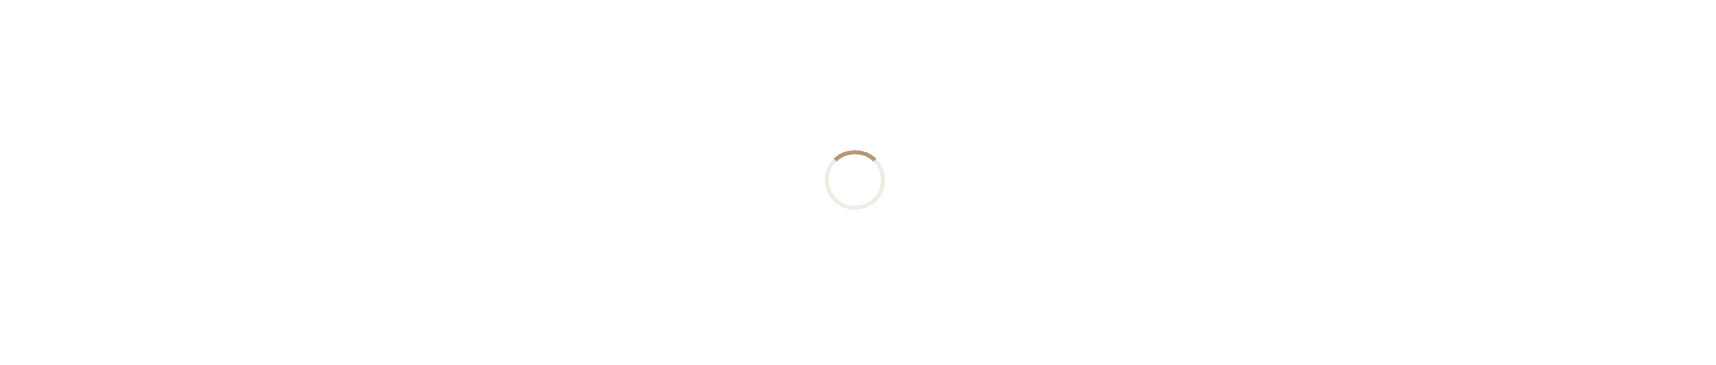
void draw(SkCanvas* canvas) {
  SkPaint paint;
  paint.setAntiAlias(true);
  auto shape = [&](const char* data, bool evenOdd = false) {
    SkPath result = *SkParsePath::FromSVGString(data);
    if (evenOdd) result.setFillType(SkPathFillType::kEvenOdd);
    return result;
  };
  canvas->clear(0xffffffff);
  paint.setStroke(true);
  paint.setStrokeWidth(4);
  paint.setColor(0xffb49575);
  canvas->drawPath(shape("M835 160C846 149.5 864 149.5 875 160"), paint);
  paint.setColor(0x33b49575);
  canvas->drawPath(shape("M875 160C880 165.5 883 172.5 883 180C883 213.5 834 218 827.5 185.5C825.5 176.5 828.5 167 835 160"), paint);
}
